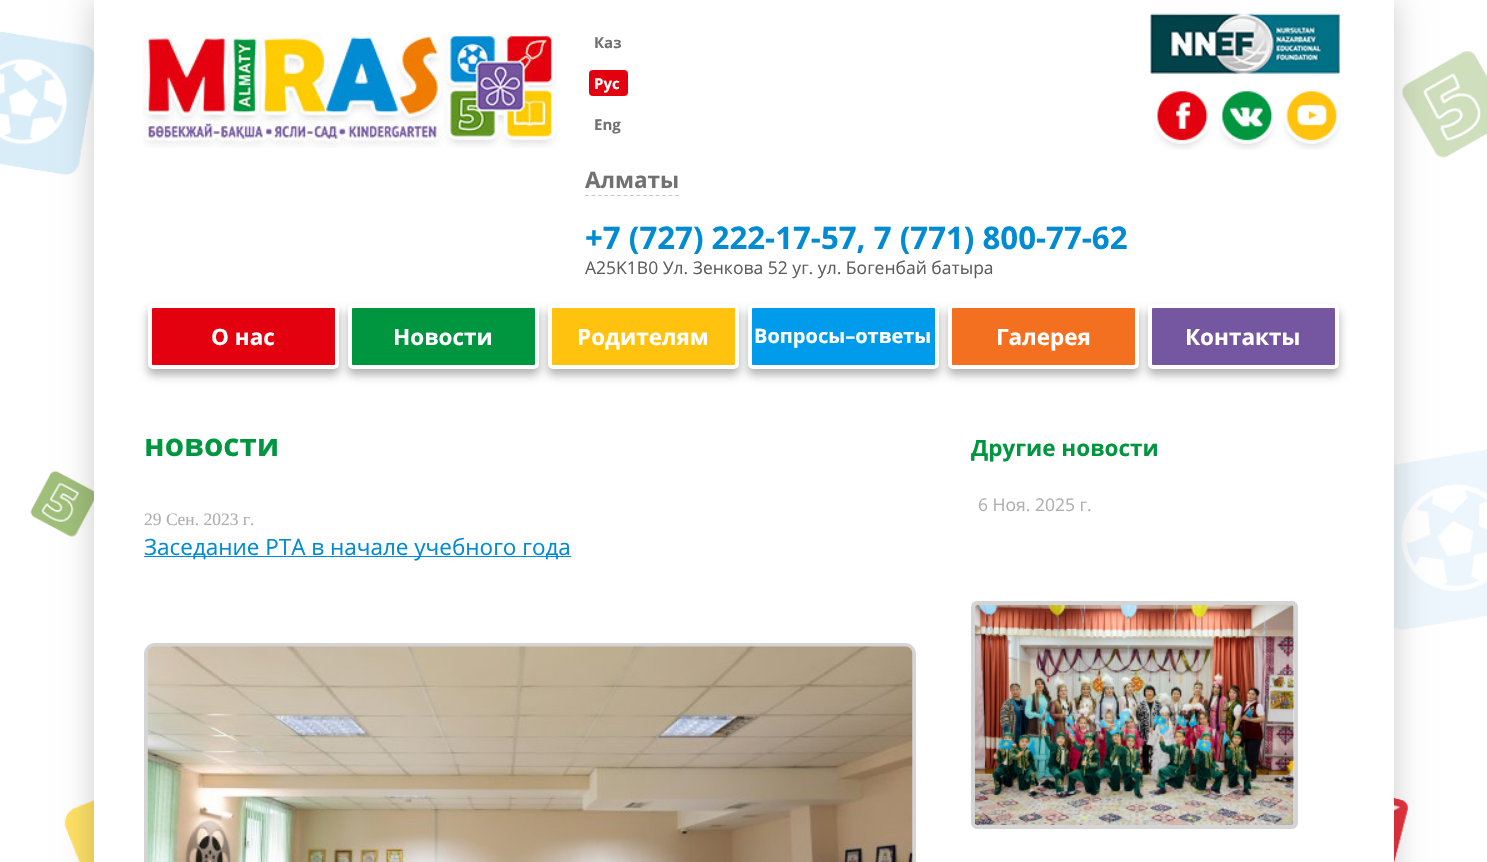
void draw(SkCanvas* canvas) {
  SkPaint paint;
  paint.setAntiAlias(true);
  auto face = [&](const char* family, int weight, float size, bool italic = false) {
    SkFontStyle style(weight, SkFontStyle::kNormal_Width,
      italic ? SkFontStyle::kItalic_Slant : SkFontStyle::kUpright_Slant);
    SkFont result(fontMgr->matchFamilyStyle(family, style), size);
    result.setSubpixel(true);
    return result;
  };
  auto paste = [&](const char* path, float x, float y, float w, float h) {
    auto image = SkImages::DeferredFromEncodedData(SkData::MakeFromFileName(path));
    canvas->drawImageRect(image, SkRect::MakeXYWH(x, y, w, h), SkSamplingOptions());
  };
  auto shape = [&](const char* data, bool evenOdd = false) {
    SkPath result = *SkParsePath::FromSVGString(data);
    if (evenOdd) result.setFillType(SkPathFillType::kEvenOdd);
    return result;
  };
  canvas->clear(0xffffffff);
  paste("img/1.png", 0, 31, 1487, 831);
  paint.setColor(0x33000000);
  paint.setMaskFilter(SkMaskFilter::MakeBlur(kNormal_SkBlurStyle, 15.5f));
  canvas->drawRect(SkRect::MakeXYWH(94, 0, 1300, 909), paint);
  paint.setMaskFilter(nullptr);
  paint.setColor(0xffffffff);
  canvas->drawRect(SkRect::MakeXYWH(94, 0, 1300, 862), paint);
  paste("img/2.png", 142, 33, 415, 115);
  paint.setColor(0xffe3000f);
  canvas->drawRoundRect(SkRect::MakeXYWH(589, 70, 39, 26), 4, 4, paint);
  paste("img/3.png", 1150, 13, 190, 61);
  paste("img/4.png", 1153, 91, 57, 59);
  paste("img/5.png", 1218, 91, 58, 59);
  paste("img/6.png", 1283, 91, 58, 59);
  paint.setStroke(true);
  paint.setStrokeWidth(1.2f);
  paint.setColor(0xffc6c6c6);
  paint.setPathEffect(SkDashPathEffect::Make({{3.75f, 2.68f}}, 0));
  canvas->drawPath(shape("M585 195.5H679"), paint);
  paint.setPathEffect(nullptr);
  paint.setStroke(false);
  paint.setColor(0x4d000000);
  paint.setMaskFilter(SkMaskFilter::MakeBlur(kNormal_SkBlurStyle, 5));
  canvas->drawRoundRect(SkRect::MakeXYWH(148, 310, 191, 65), 5, 5, paint);
  paint.setMaskFilter(nullptr);
  paint.setColor(0xffe3000f);
  canvas->drawRoundRect(SkRect::MakeXYWH(150, 306, 187, 61), 3, 3, paint);
  paint.setStroke(true);
  paint.setStrokeWidth(4);
  paint.setColor(0xffffffff);
  canvas->drawRoundRect(SkRect::MakeXYWH(150, 306, 187, 61), 3, 3, paint);
  paint.setStroke(false);
  paint.setColor(0x4d000000);
  paint.setMaskFilter(SkMaskFilter::MakeBlur(kNormal_SkBlurStyle, 5));
  canvas->drawRoundRect(SkRect::MakeXYWH(348, 310, 191, 65), 5, 5, paint);
  paint.setMaskFilter(nullptr);
  paint.setColor(0xff00963f);
  canvas->drawRoundRect(SkRect::MakeXYWH(350, 306, 187, 61), 3, 3, paint);
  paint.setStroke(true);
  paint.setColor(0xffffffff);
  canvas->drawRoundRect(SkRect::MakeXYWH(350, 306, 187, 61), 3, 3, paint);
  paint.setStroke(false);
  paint.setColor(0x4d000000);
  paint.setMaskFilter(SkMaskFilter::MakeBlur(kNormal_SkBlurStyle, 5));
  canvas->drawRoundRect(SkRect::MakeXYWH(548, 310, 191, 65), 5, 5, paint);
  paint.setMaskFilter(nullptr);
  paint.setColor(0xffffc20e);
  canvas->drawRoundRect(SkRect::MakeXYWH(550, 306, 187, 61), 3, 3, paint);
  paint.setStroke(true);
  paint.setColor(0xffffffff);
  canvas->drawRoundRect(SkRect::MakeXYWH(550, 306, 187, 61), 3, 3, paint);
  paint.setStroke(false);
  paint.setColor(0x4d000000);
  paint.setMaskFilter(SkMaskFilter::MakeBlur(kNormal_SkBlurStyle, 5));
  canvas->drawRoundRect(SkRect::MakeXYWH(748, 310, 191, 65), 5, 5, paint);
  paint.setMaskFilter(nullptr);
  paint.setColor(0xff009bea);
  canvas->drawRoundRect(SkRect::MakeXYWH(750, 306, 187, 61), 3, 3, paint);
  paint.setStroke(true);
  paint.setColor(0xffffffff);
  canvas->drawRoundRect(SkRect::MakeXYWH(750, 306, 187, 61), 3, 3, paint);
  paint.setStroke(false);
  paint.setColor(0x4d000000);
  paint.setMaskFilter(SkMaskFilter::MakeBlur(kNormal_SkBlurStyle, 5));
  canvas->drawRoundRect(SkRect::MakeXYWH(948, 310, 191, 65), 5, 5, paint);
  paint.setMaskFilter(nullptr);
  paint.setColor(0xfff37021);
  canvas->drawRoundRect(SkRect::MakeXYWH(950, 306, 187, 61), 3, 3, paint);
  paint.setStroke(true);
  paint.setColor(0xffffffff);
  canvas->drawRoundRect(SkRect::MakeXYWH(950, 306, 187, 61), 3, 3, paint);
  paint.setStroke(false);
  paint.setColor(0x4d000000);
  paint.setMaskFilter(SkMaskFilter::MakeBlur(kNormal_SkBlurStyle, 5));
  canvas->drawRoundRect(SkRect::MakeXYWH(1148, 310, 191, 65), 5, 5, paint);
  paint.setMaskFilter(nullptr);
  paint.setColor(0xff7556a0);
  canvas->drawRoundRect(SkRect::MakeXYWH(1150, 306, 187, 61), 3, 3, paint);
  paint.setStroke(true);
  paint.setColor(0xffffffff);
  canvas->drawRoundRect(SkRect::MakeXYWH(1150, 306, 187, 61), 3, 3, paint);
  paint.setStroke(false);
  paint.setColor(0xff008bd2);
  canvas->drawRect(SkRect::MakeXYWH(144, 556, 427, 1), paint);
  paint.setStroke(true);
  paint.setColor(0xffd4d4d4);
  canvas->drawRoundRect(SkRect::MakeXYWH(146, 645, 768, 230), 9, 9, paint);
  paste("img/7.png", 147, 646, 766, 216);
  canvas->drawRoundRect(SkRect::MakeXYWH(973, 603, 323, 224), 4, 4, paint);
  paste("img/8.png", 975, 605, 319, 220);
  auto f0 = face("Open Sans", 700, 15);
  paint.setStroke(false);
  paint.setColor(0xff717171);
  canvas->drawString("Каз", 594, 48, f0, paint);
  paint.setColor(0xffffffff);
  canvas->drawString("Рус", 594, 89, f0, paint);
  paint.setColor(0xff717171);
  canvas->drawString("Eng", 594, 130, f0, paint);
  auto f1 = face("Open Sans", 700, 22.5f);
  canvas->drawString("Алматы", 585, 188, f1, paint);
  auto f2 = face("Open Sans", 700, 31.25f);
  paint.setColor(0xff008bd2);
  canvas->drawString("+7 (727) 222-17-57, 7 (771) 800-77-62", 585, 249, f2, paint);
  auto f3 = face("Open Sans", 400, 17.5f);
  paint.setColor(0xff5e5d5d);
  canvas->drawString("A25K1B0 Ул. Зенкова 52 уг. ул. Богенбай батыра", 585, 274, f3, paint);
  paint.setColor(0xffffffff);
  {
    const struct { const char* s; float x, y; } items[] = {
      {"О нас", 211, 345},
      {"Новости", 393, 345},
      {"Родителям", 577, 345},
    };
    for (auto [s, x, y] : items) {
      canvas->drawString(s, x, y, f1, paint);
    }
  }
  auto f4 = face("Open Sans", 700, 20);
  canvas->drawString("Вопросы–ответы", 754, 343, f4, paint);
  canvas->drawString("Галерея", 996, 345, f1, paint);
  canvas->drawString("Контакты", 1185, 345, f1, paint);
  paint.setColor(0xff00963f);
  canvas->drawString("новости", 144, 456, f2, paint);
  auto f5 = face("Liberation Serif", 400, 17.5f);
  paint.setColor(0xffafafaf);
  canvas->drawString("29 Сен. 2023 г.", 144, 525, f5, paint);
  auto f6 = face("Open Sans", 400, 22.5f);
  paint.setColor(0xff008bd2);
  canvas->drawString("Заседание РТА в начале учебного года", 144, 555, f6, paint);
  paint.setColor(0xff00963f);
  canvas->drawString("Другие новости", 971, 456, f1, paint);
  paint.setColor(0xffafafaf);
  canvas->drawString("6 Ноя. 2025 г.", 978, 511, f3, paint);
}
